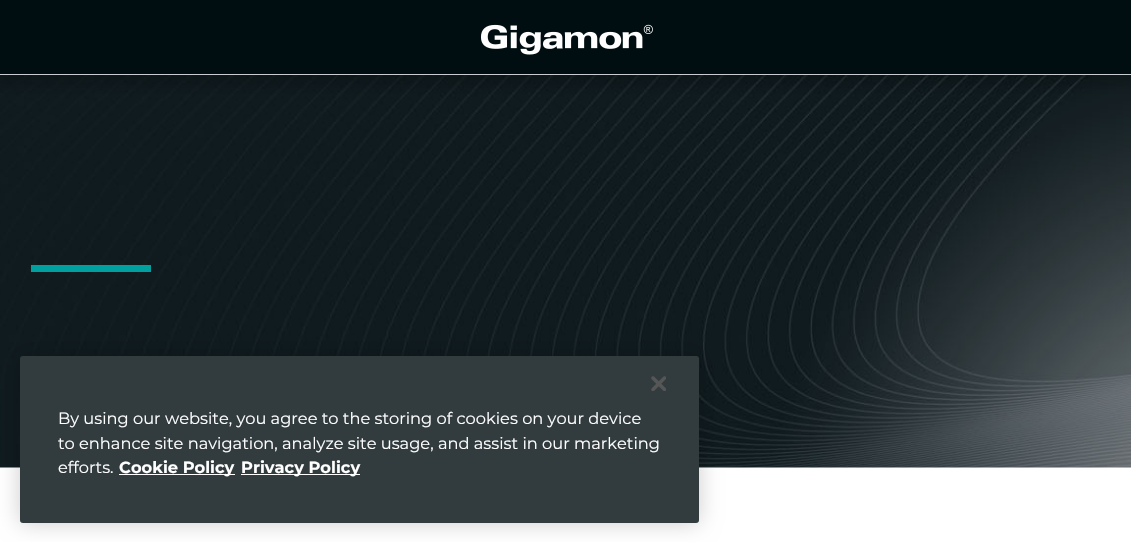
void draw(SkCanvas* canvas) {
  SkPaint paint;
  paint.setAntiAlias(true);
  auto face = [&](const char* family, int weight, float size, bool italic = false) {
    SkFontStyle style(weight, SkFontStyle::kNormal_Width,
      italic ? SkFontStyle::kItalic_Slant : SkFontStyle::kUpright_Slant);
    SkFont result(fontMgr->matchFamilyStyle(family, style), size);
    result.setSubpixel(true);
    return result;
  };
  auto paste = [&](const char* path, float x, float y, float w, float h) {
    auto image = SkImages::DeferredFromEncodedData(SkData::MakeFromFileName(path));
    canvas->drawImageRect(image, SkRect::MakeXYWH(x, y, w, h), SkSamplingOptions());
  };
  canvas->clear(0xffffffff);
  paste("img/2.png", 0, 75, 1131, 393);
  paint.setColor(0x33000000);
  paint.setMaskFilter(SkMaskFilter::MakeBlur(kNormal_SkBlurStyle, 7));
  canvas->drawRect(SkRect::MakeXYWH(-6, -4, 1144, 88), paint);
  paint.setMaskFilter(nullptr);
  paint.setColor(0xff010e11);
  canvas->drawRect(SkRect::MakeXYWH(0, 0, 1131, 74), paint);
  paint.setColor(0xffc9cdd2);
  canvas->drawRect(SkRect::MakeXYWH(0, 74, 1131, 1), paint);
  paste("img/1.png", 481, 24, 172, 31);
  paint.setColor(0xff00a0a0);
  canvas->drawRect(SkRect::MakeXYWH(31, 265, 120, 7), paint);
  paint.setColor(0x33000000);
  paint.setMaskFilter(SkMaskFilter::MakeBlur(kNormal_SkBlurStyle, 11));
  canvas->drawRoundRect(SkRect::MakeXYWH(20, 356, 679, 167), 3, 3, paint);
  paint.setMaskFilter(nullptr);
  paint.setColor(0xff323c3f);
  canvas->drawRoundRect(SkRect::MakeXYWH(20, 356, 679, 167), 3, 3, paint);
  paste("img/3.png", 651, 376, 15, 15);
  paint.setColor(0xffffffff);
  canvas->drawRect(SkRect::MakeXYWH(119, 474, 116, 1), paint);
  canvas->drawRect(SkRect::MakeXYWH(241, 474, 119, 1), paint);
  auto f0 = face("Montserrat", 400, 16.25f);
  {
    const struct { const char* s; float x, y; } items[] = {
      {"By using our website, you agree to the storing of cookies on your device", 58, 424},
      {"to enhance site navigation, analyze site usage, and assist in our marketing", 58, 449},
      {"efforts.", 58, 473},
    };
    for (auto [s, x, y] : items) {
      canvas->drawString(s, x, y, f0, paint);
    }
  }
  auto f1 = face("Montserrat", 700, 16.25f);
  canvas->drawString("Cookie Policy", 119, 473, f1, paint);
  canvas->drawString("Privacy Policy", 241, 473, f1, paint);
}
